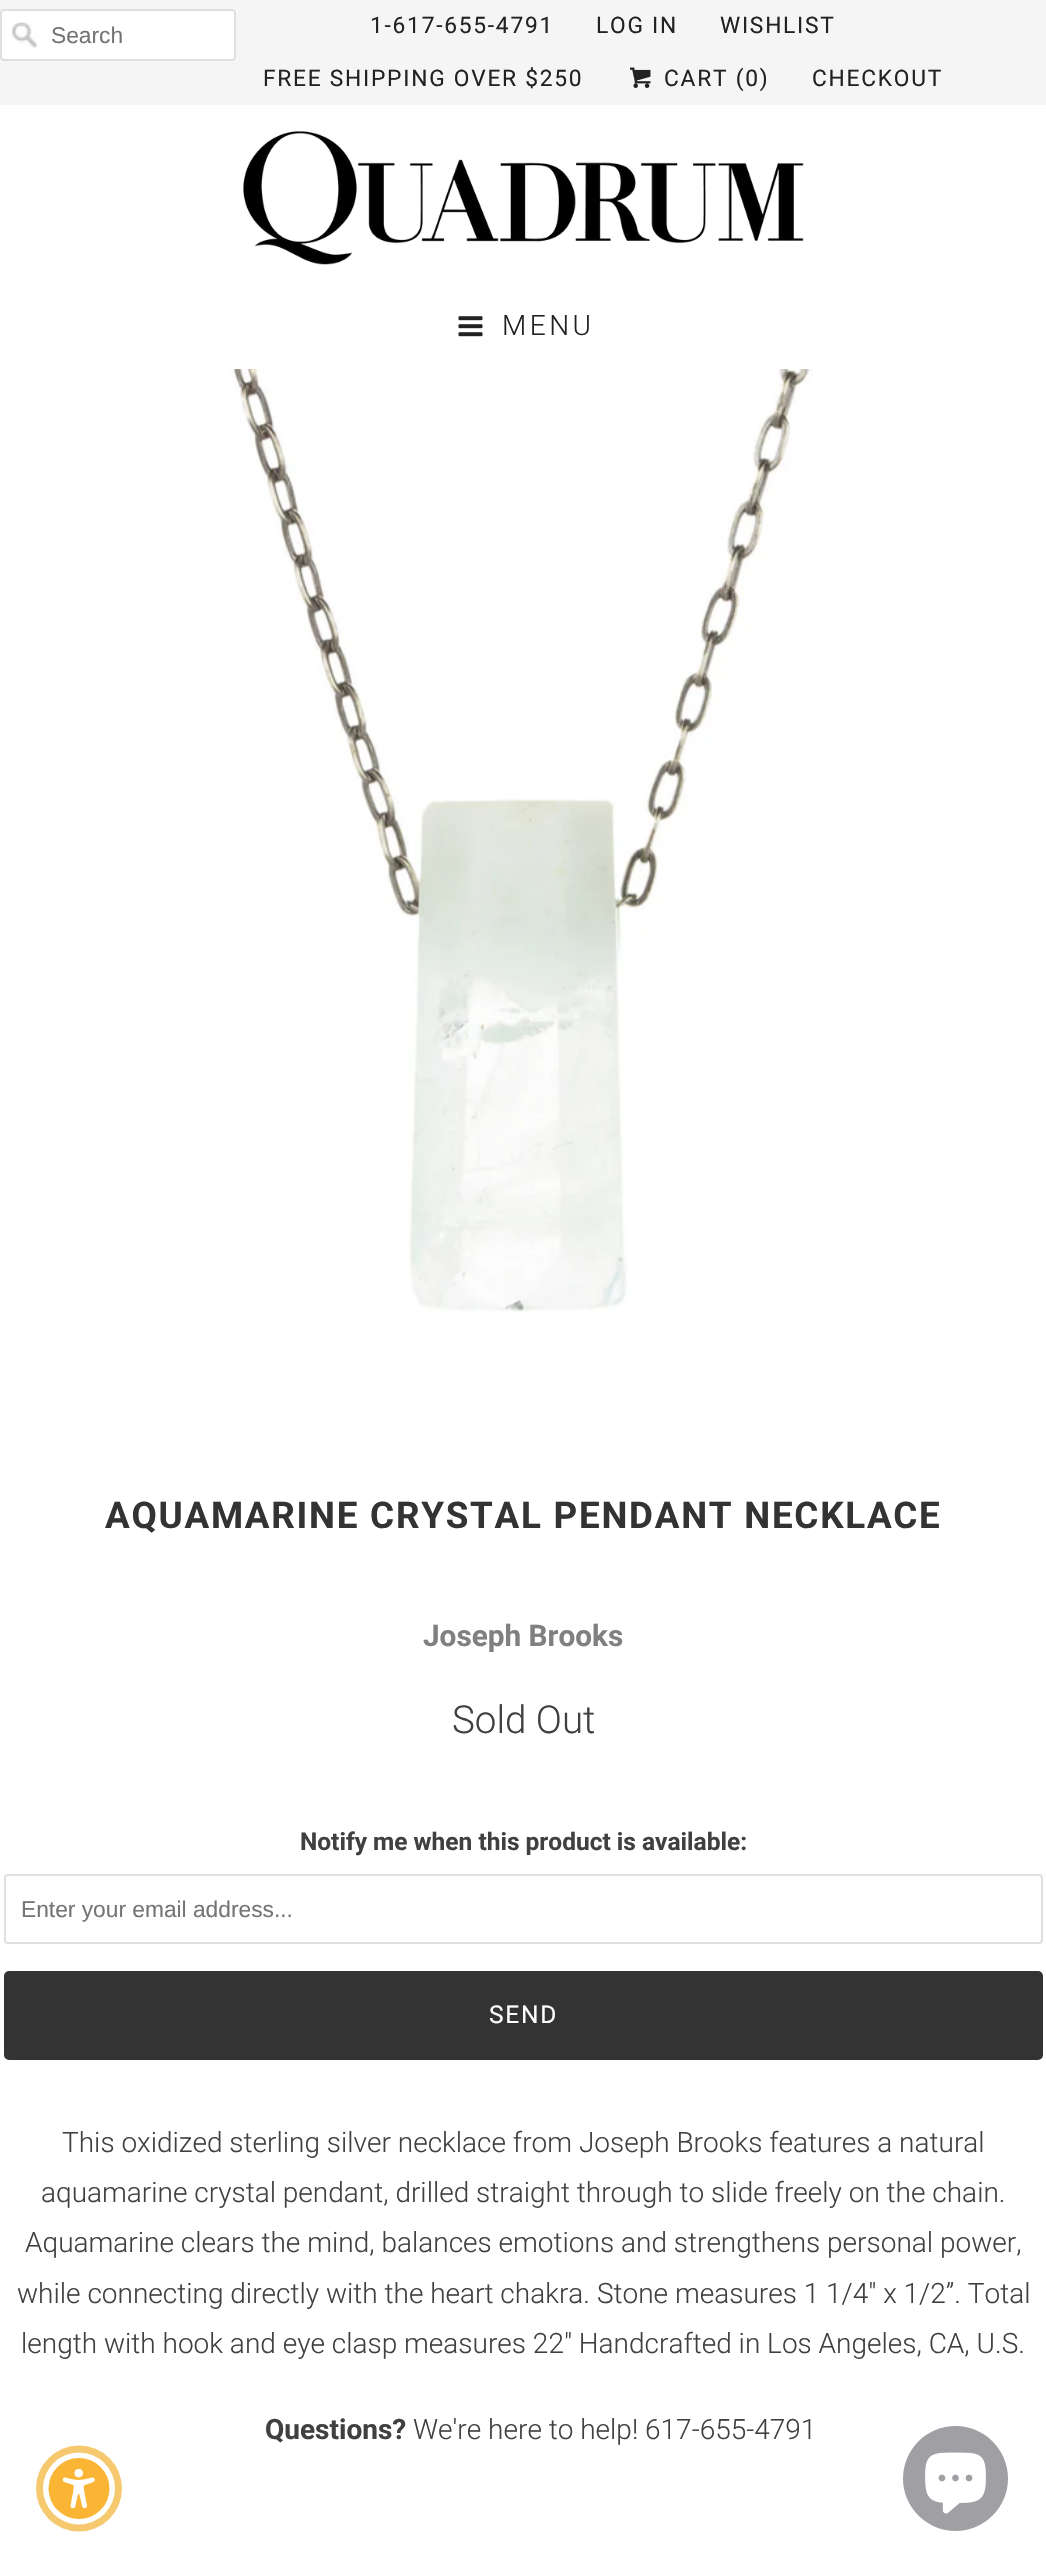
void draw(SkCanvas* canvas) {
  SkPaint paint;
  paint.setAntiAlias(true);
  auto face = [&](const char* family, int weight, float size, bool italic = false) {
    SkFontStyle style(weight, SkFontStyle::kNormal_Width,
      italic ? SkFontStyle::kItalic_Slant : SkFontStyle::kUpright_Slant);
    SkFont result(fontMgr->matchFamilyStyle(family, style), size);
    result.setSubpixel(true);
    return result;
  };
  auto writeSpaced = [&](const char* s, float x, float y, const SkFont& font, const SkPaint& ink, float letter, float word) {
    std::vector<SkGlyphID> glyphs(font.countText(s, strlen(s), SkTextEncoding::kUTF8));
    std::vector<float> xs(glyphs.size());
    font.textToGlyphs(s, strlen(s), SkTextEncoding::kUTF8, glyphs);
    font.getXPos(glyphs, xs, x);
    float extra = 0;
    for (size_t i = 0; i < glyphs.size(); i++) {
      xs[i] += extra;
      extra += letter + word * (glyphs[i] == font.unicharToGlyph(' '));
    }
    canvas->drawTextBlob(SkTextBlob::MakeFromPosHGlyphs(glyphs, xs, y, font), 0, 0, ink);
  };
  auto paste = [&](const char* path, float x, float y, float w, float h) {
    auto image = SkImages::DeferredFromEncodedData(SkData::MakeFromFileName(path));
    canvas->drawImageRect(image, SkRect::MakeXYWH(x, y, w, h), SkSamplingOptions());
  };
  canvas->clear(0xffffffff);
  paint.setColor(0xfff5f5f5);
  canvas->drawRect(SkRect::MakeXYWH(0, 0, 1046, 105), paint);
  paint.setColor(0xffffffff);
  canvas->drawRoundRect(SkRect::MakeXYWH(0, 9, 236, 52), 4, 4, paint);
  paste("img/1.png", 12, 22, 25, 26);
  paint.setStroke(true);
  paint.setStrokeWidth(2);
  paint.setColor(0xffdfdfdf);
  canvas->drawRoundRect(SkRect::MakeXYWH(1, 10, 234, 50), 3, 3, paint);
  paste("img/2.png", 630, 67, 21, 21);
  paste("img/3.png", 243, 131, 561, 134);
  paste("img/4.png", 458, 316, 25, 21);
  paste("img/5.png", 230, 369, 583, 943);
  canvas->drawRoundRect(SkRect::MakeXYWH(5, 1875, 1037, 68), 3, 3, paint);
  paint.setStroke(false);
  paint.setColor(0xff333333);
  canvas->drawRoundRect(SkRect::MakeXYWH(5, 1972, 1037, 87), 4, 4, paint);
  paint.setStroke(true);
  canvas->drawRoundRect(SkRect::MakeXYWH(5, 1972, 1037, 87), 4, 4, paint);
  paint.setStroke(false);
  paint.setColor(0xfff6c96f);
  canvas->drawCircle(79, 2488.5f, 43, paint);
  paint.setColor(0xffffffff);
  canvas->drawCircle(79, 2488.5f, 36, paint);
  paint.setColor(0xfffab534);
  canvas->drawCircle(79, 2488.5f, 30.5f, paint);
  paste("img/6.png", 62, 2469, 33, 40);
  paint.setColor(0xff9f9fa4);
  canvas->drawCircle(955.5f, 2478.5f, 52.5f, paint);
  paste("img/7.png", 925, 2452, 61, 62);
  auto f0 = face("Liberation Sans", 400, 22.75f);
  paint.setColor(0xff757575);
  canvas->drawString("Search", 51, 43, f0, paint);
  auto f1 = face("Roboto", 400, 22.75f);
  paint.setColor(0xff222222);
  {
    const struct { const char* s; float x, y; } items[] = {
      {"1-617-655-4791", 370, 33},
      {"LOG IN", 596, 33},
      {"WISHLIST", 720, 33},
      {"FREE SHIPPING OVER $250", 263, 86},
      {"CART (0)", 664, 86},
      {"CHECKOUT", 812, 86},
    };
    for (auto [s, x, y] : items) {
      writeSpaced(s, x, y, f1, paint, 1.75f, 0);
    }
  }
  auto f2 = face("Roboto", 300, 28);
  writeSpaced("MENU", 502, 335, f2, paint, 3.5f, 0);
  auto f3 = face("Roboto", 700, 36.75f);
  paint.setColor(0xff333333);
  writeSpaced("AQUAMARINE CRYSTAL PENDANT NECKLACE", 105, 1528, f3, paint, 1.75f, 0);
  auto f4 = face("Roboto", 700, 29.75f);
  paint.setColor(0xff808080);
  canvas->drawString("Joseph Brooks", 423, 1646, f4, paint);
  auto f5 = face("Roboto", 300, 38.5f);
  paint.setColor(0xff404040);
  canvas->drawString("Sold Out", 452, 1733, f5, paint);
  auto f6 = face("Roboto", 700, 24.5f);
  canvas->drawString("Notify me when this product is available:", 300, 1850, f6, paint);
  paint.setColor(0xff757575);
  canvas->drawString("Enter your email address...", 21, 1917, f0, paint);
  auto f7 = face("Roboto", 400, 24.5f);
  paint.setColor(0xfffefffd);
  writeSpaced("SEND", 489, 2023, f7, paint, 1.75f, 0);
  paint.setColor(0xff404040);
  {
    const struct { const char* s; float x, y; } items[] = {
      {"This oxidized sterling silver necklace from Joseph Brooks features a natural", 62, 2152},
      {"aquamarine crystal pendant, drilled straight through to slide freely on the chain.", 41, 2202},
      {"Aquamarine clears the mind, balances emotions and strengthens personal power,", 25, 2252},
      {"while connecting directly with the heart chakra. Stone measures 1 1/4\" x 1/2”. Total", 17, 2303},
      {"length with hook and eye clasp measures 22\" Handcrafted in Los Angeles, CA, U.S.", 21, 2353},
    };
    for (auto [s, x, y] : items) {
      canvas->drawString(s, x, y, f2, paint);
    }
  }
  auto f8 = face("Roboto", 700, 28);
  canvas->drawString("Questions?", 265, 2439, f8, paint);
  canvas->drawString("We're here to help! 617-655-4791", 413, 2439, f2, paint);
}
